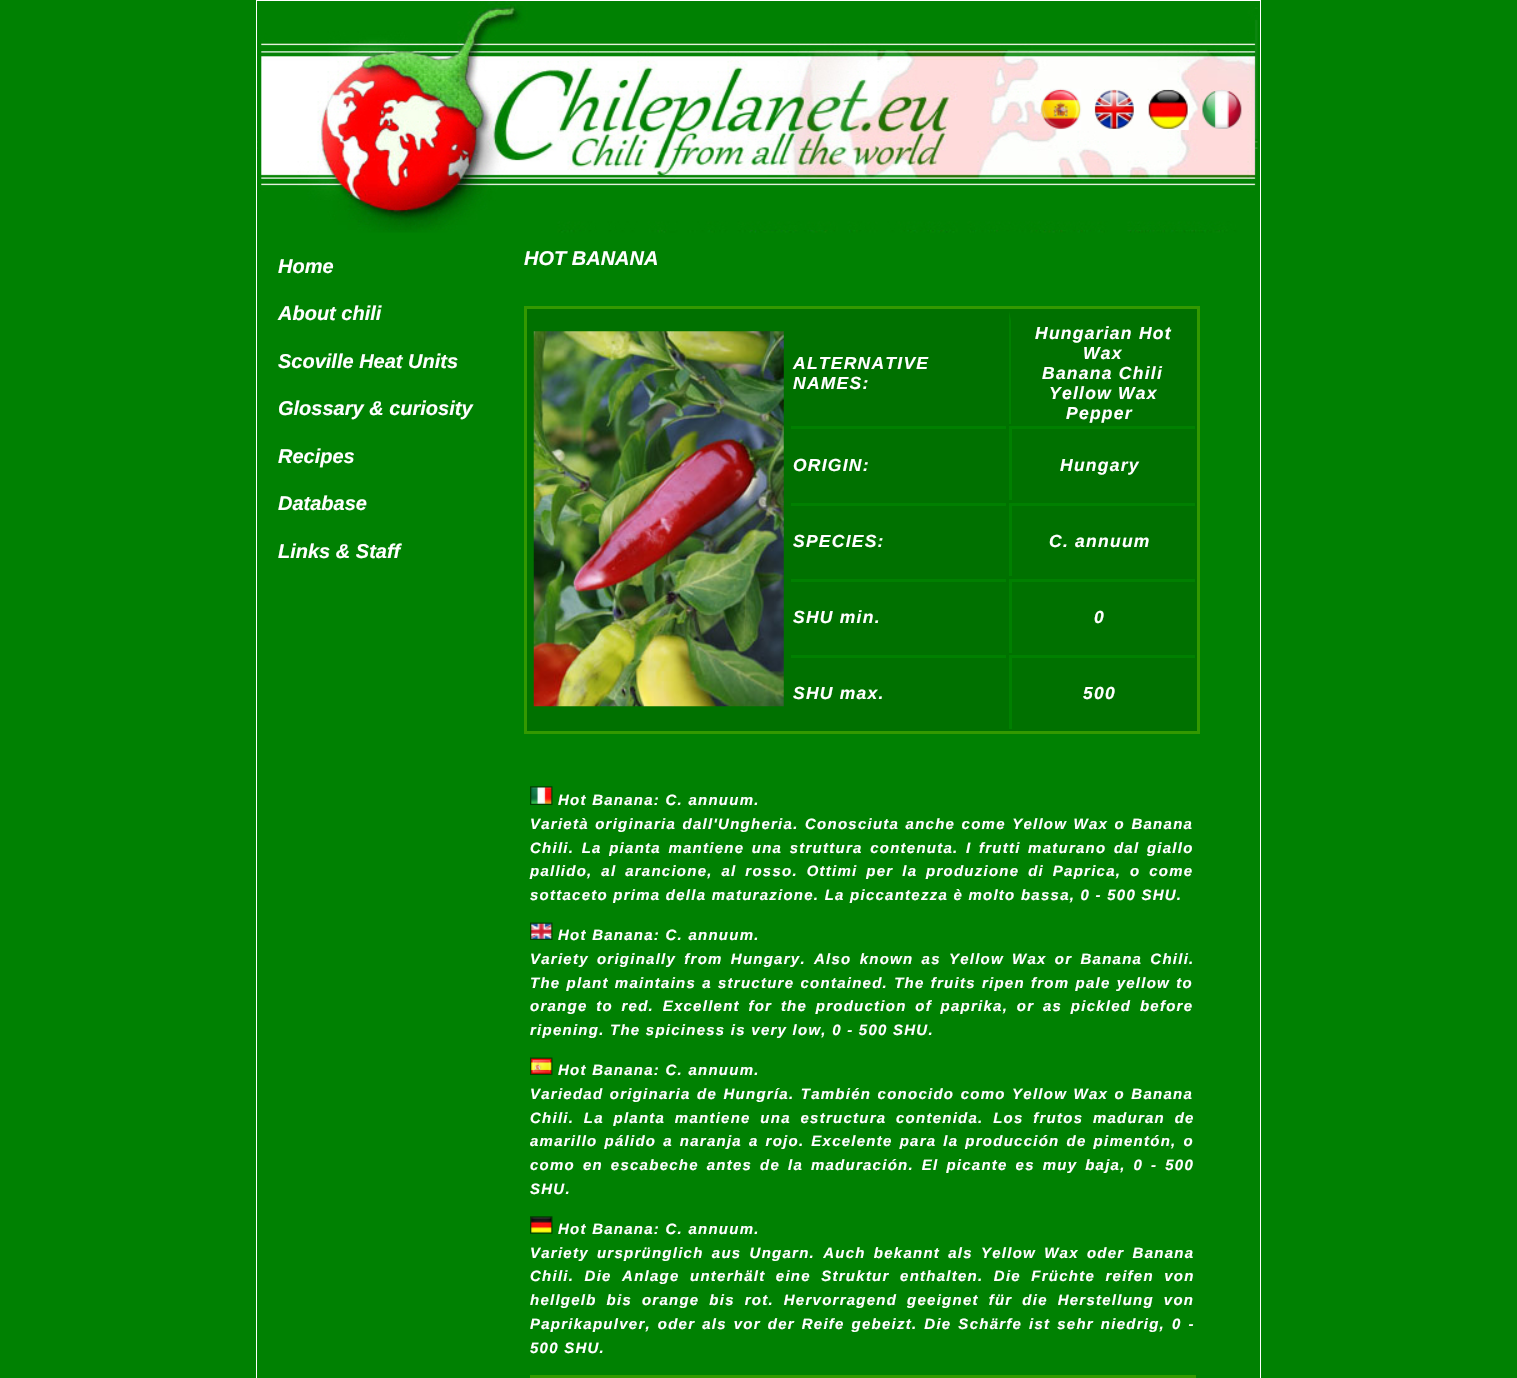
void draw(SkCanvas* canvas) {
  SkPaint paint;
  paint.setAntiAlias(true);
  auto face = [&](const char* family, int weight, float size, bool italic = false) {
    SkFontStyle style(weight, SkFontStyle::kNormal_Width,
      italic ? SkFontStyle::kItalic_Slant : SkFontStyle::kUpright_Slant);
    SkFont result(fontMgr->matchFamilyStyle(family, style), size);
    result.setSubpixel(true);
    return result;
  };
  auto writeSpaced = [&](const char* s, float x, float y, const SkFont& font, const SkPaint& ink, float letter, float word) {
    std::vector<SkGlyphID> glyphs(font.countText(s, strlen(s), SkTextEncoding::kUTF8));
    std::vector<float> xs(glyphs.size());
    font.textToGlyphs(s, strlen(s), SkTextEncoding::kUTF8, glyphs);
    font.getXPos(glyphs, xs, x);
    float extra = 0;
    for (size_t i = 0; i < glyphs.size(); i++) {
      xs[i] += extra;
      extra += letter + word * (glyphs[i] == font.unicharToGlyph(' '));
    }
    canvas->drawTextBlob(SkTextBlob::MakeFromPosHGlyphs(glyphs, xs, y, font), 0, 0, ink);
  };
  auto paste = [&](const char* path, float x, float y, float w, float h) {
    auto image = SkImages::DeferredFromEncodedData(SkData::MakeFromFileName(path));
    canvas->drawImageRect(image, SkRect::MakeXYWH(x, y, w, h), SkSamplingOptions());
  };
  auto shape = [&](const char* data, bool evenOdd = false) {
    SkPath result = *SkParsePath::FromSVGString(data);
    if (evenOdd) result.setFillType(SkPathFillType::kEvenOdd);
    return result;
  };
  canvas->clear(0xff008102);
  paint.setStroke(true);
  paint.setStrokeWidth(1);
  paint.setColor(0xffffffff);
  canvas->drawRect(SkRect::MakeXYWH(256.5f, 0.5f, 1004, 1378), paint);
  paste("img/1.png", 257, 1, 1001, 232);
  paste("img/2.png", 1040, 88, 42, 42);
  paste("img/3.png", 1094, 89, 40, 40);
  paste("img/4.png", 1147, 88, 42, 42);
  paste("img/5.png", 1201, 89, 42, 41);
  paint.setStroke(false);
  paint.setColor(0xff007100);
  canvas->drawRect(SkRect::MakeXYWH(525.5f, 307.5f, 673, 425), paint);
  paint.setStroke(true);
  paint.setStrokeWidth(3);
  paint.setColor(0xff339900);
  canvas->drawRect(SkRect::MakeXYWH(525.5f, 307.5f, 673, 425), paint);
  paste("img/6.png", 533, 331, 251, 376);
  paint.setStroke(false);
  paint.setColor(0xff008000);
  canvas->drawPath(shape("M1009 424V311L1011 321V424Z"), paint);
  {
    const struct { float x, y, w, h; SkColor color; } items[] = {
      {791, 426, 215, 3, 0xff008000},
      {1009, 426, 186, 3, 0xff008000},
      {1009, 426, 3, 74, 0xff008000},
      {791, 503, 215, 3, 0xff008000},
      {1009, 503, 186, 3, 0xff008000},
      {1009, 503, 3, 73, 0xff008000},
      {791, 579, 215, 3, 0xff008000},
      {1009, 579, 186, 3, 0xff008000},
      {1009, 579, 3, 74, 0xff008000},
      {791, 655, 215, 3, 0xff008000},
      {1009, 655, 186, 3, 0xff008000},
      {1009, 655, 3, 74, 0xff008000},
    };
    for (auto [x, y, w, h, color] : items) {
      paint.setColor(color);
      canvas->drawRect(SkRect::MakeXYWH(x, y, w, h), paint);
    }
  }
  paste("img/7.png", 530, 786, 23, 19);
  paste("img/8.png", 530, 922, 23, 18);
  paste("img/9.png", 530, 1057, 23, 18);
  paste("img/10.png", 530, 1216, 23, 18);
  paint.setStroke(true);
  paint.setColor(0xff339900);
  canvas->drawRect(SkRect::MakeXYWH(531.5f, 1376.5f, 663, 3), paint);
  auto f0 = face("Liberation Sans", 700, 20, true);
  paint.setStroke(false);
  paint.setColor(0xffffffff);
  {
    const struct { const char* s; float x, y; } items[] = {
      {"Home", 278, 273},
      {"About chili", 278, 320},
      {"Scoville Heat Units", 278, 368},
      {"Glossary & curiosity", 278, 415},
      {"Recipes", 278, 463},
      {"Database", 278, 510},
      {"Links & Staff", 278, 558},
      {"HOT BANANA", 524, 265},
    };
    for (auto [s, x, y] : items) {
      canvas->drawString(s, x, y, f0, paint);
    }
  }
  auto f1 = face("Liberation Sans", 700, 17.5f, true);
  {
    const struct { const char* s; float x, y; } items[] = {
      {"ALTERNATIVE", 793, 369},
      {"NAMES:", 793, 389},
      {"Hungarian Hot", 1035, 339},
      {"Wax", 1083, 359},
      {"Banana Chili", 1042, 379},
      {"Yellow Wax", 1049, 399},
      {"Pepper", 1066, 419},
      {"ORIGIN:", 793, 471},
      {"Hungary", 1060, 471},
      {"SPECIES:", 793, 547},
      {"C. annuum", 1049, 547},
      {"SHU min.", 793, 623},
      {"0", 1094, 623},
      {"SHU max.", 793, 699},
      {"500", 1083, 699},
    };
    for (auto [s, x, y] : items) {
      writeSpaced(s, x, y, f1, paint, 1.25f, 0);
    }
  }
  auto f2 = face("Liberation Sans", 700, 15, true);
  writeSpaced("Hot Banana: C. annuum.", 558, 805, f2, paint, 1.25f, 0);
  writeSpaced("Varietà originaria dall'Ungheria. Conosciuta anche come Yellow Wax o Banana", 530, 829, f2, paint, 1.25f, 1);
  writeSpaced("Chili. La pianta mantiene una struttura contenuta. I frutti maturano dal giallo", 530, 853, f2, paint, 1.25f, 2.1f);
  writeSpaced("pallido, al arancione, al rosso. Ottimi per la produzione di Paprica, o come", 530, 876, f2, paint, 1.25f, 3.4f);
  writeSpaced("sottaceto prima della maturazione. La piccantezza è molto bassa, 0 - 500 SHU.", 530, 900, f2, paint, 1.25f, 0);
  writeSpaced("Hot Banana: C. annuum.", 558, 940, f2, paint, 1.25f, 0);
  writeSpaced("Variety originally from Hungary. Also known as Yellow Wax or Banana Chili.", 530, 964, f2, paint, 1.25f, 2.75f);
  writeSpaced("The plant maintains a structure contained. The fruits ripen from pale yellow to", 530, 988, f2, paint, 1.25f, 0.75f);
  writeSpaced("orange to red. Excellent for the production of paprika, or as pickled before", 530, 1011, f2, paint, 1.25f, 3.25f);
  writeSpaced("ripening. The spiciness is very low, 0 - 500 SHU.", 530, 1035, f2, paint, 1.25f, 0);
  writeSpaced("Hot Banana: C. annuum.", 558, 1075, f2, paint, 1.25f, 0);
  writeSpaced("Variedad originaria de Hungría. También conocido como Yellow Wax o Banana", 530, 1099, f2, paint, 1.25f, 1);
  writeSpaced("Chili. La planta mantiene una estructura contenida. Los frutos maduran de", 530, 1123, f2, paint, 1.25f, 4.25f);
  writeSpaced("amarillo pálido a naranja a rojo. Excelente para la producción de pimentón, o", 530, 1146, f2, paint, 1.25f, 1.6f);
  writeSpaced("como en escabeche antes de la maduración. El picante es muy baja, 0 - 500", 530, 1170, f2, paint, 1.25f, 2.5f);
  writeSpaced("SHU.", 530, 1194, f2, paint, 1.25f, 0);
  writeSpaced("Hot Banana: C. annuum.", 558, 1234, f2, paint, 1.25f, 0);
  writeSpaced("Variety ursprünglich aus Ungarn. Auch bekannt als Yellow Wax oder Banana", 530, 1258, f2, paint, 1.25f, 2.75f);
  writeSpaced("Chili. Die Anlage unterhält eine Struktur enthalten. Die Früchte reifen von", 530, 1281, f2, paint, 1.25f, 5);
  writeSpaced("hellgelb bis orange bis rot. Hervorragend geeignet für die Herstellung von", 530, 1305, f2, paint, 1.25f, 4.5f);
  writeSpaced("Paprikapulver, oder als vor der Reife gebeizt. Die Schärfe ist sehr niedrig, 0 -", 530, 1329, f2, paint, 1.25f, 1.5f);
  writeSpaced("500 SHU.", 530, 1353, f2, paint, 1.25f, 0);
}
